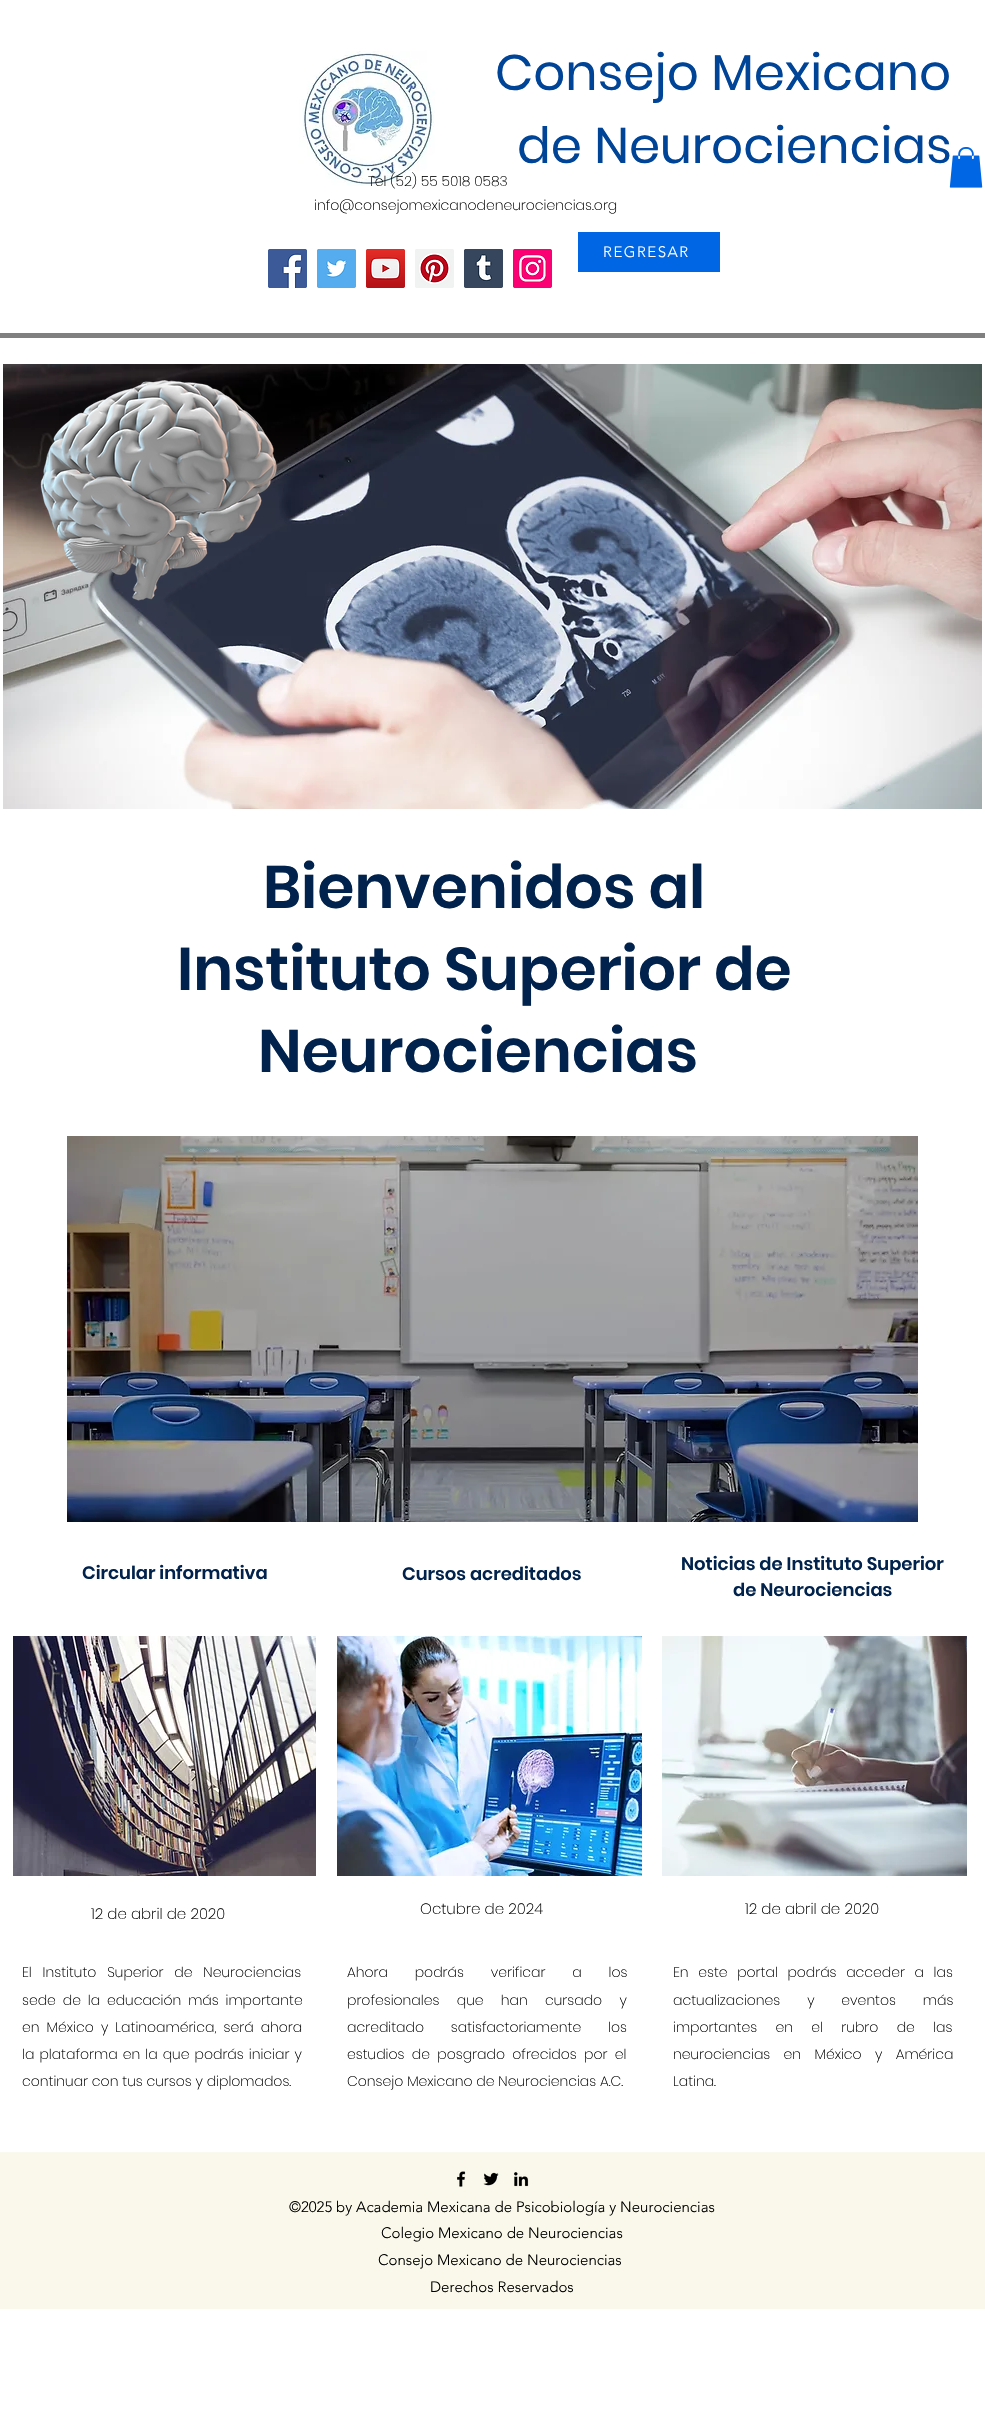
void draw(SkCanvas* canvas) {
  SkPaint paint;
  paint.setAntiAlias(true);
  auto face = [&](const char* family, int weight, float size, bool italic = false) {
    SkFontStyle style(weight, SkFontStyle::kNormal_Width,
      italic ? SkFontStyle::kItalic_Slant : SkFontStyle::kUpright_Slant);
    SkFont result(fontMgr->matchFamilyStyle(family, style), size);
    result.setSubpixel(true);
    return result;
  };
  auto writeSpaced = [&](const char* s, float x, float y, const SkFont& font, const SkPaint& ink, float letter, float word) {
    std::vector<SkGlyphID> glyphs(font.countText(s, strlen(s), SkTextEncoding::kUTF8));
    std::vector<float> xs(glyphs.size());
    font.textToGlyphs(s, strlen(s), SkTextEncoding::kUTF8, glyphs);
    font.getXPos(glyphs, xs, x);
    float extra = 0;
    for (size_t i = 0; i < glyphs.size(); i++) {
      xs[i] += extra;
      extra += letter + word * (glyphs[i] == font.unicharToGlyph(' '));
    }
    canvas->drawTextBlob(SkTextBlob::MakeFromPosHGlyphs(glyphs, xs, y, font), 0, 0, ink);
  };
  auto paste = [&](const char* path, float x, float y, float w, float h) {
    auto image = SkImages::DeferredFromEncodedData(SkData::MakeFromFileName(path));
    canvas->drawImageRect(image, SkRect::MakeXYWH(x, y, w, h), SkSamplingOptions());
  };
  canvas->clear(0xffffffff);
  paste("img/1.png", 299, 51, 136, 135);
  paste("img/2.png", 268, 249, 39, 39);
  paste("img/3.png", 317, 249, 39, 39);
  paste("img/4.png", 366, 249, 39, 39);
  paste("img/5.png", 415, 249, 39, 39);
  paste("img/6.png", 464, 249, 39, 39);
  paste("img/7.png", 513, 249, 39, 39);
  paint.setColor(0xff0066e3);
  canvas->drawRect(SkRect::MakeXYWH(578, 232, 142, 40), paint);
  paint.setColor(0xff808080);
  canvas->drawRect(SkRect::MakeXYWH(0, 333, 985, 5), paint);
  paste("img/9.png", 3, 364, 979, 445);
  paste("img/10.png", 40, 380, 237, 221);
  paste("img/11.png", 67, 1136, 851, 386);
  paste("img/12.png", 13, 1636, 303, 240);
  paste("img/13.png", 337, 1636, 305, 240);
  paste("img/14.png", 662, 1636, 305, 240);
  paint.setColor(0xfff9f8ea);
  canvas->drawRect(SkRect::MakeXYWH(0, 2153, 985, 156), paint);
  paint.setColor(0xfffaf9ed);
  canvas->drawRect(SkRect::MakeXYWH(0, 2152, 985, 1), paint);
  paste("img/15.png", 457, 2171, 9, 16);
  paste("img/16.png", 483, 2172, 16, 14);
  paste("img/17.png", 514, 2172, 15, 15);
  auto f0 = face("Poppins", 400, 50);
  paint.setColor(0xff004497);
  canvas->drawString("Consejo Mexicano", 495, 90, f0, paint);
  canvas->drawString("de Neurociencias", 517, 163, f0, paint);
  auto f1 = face("Poppins", 200, 14);
  paint.setColor(0xff000000);
  canvas->drawString("Tel (52) 55 5018 0583", 368, 186, f1, paint);
  auto f2 = face("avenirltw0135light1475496", 300, 15);
  paint.setColor(0xffffffff);
  writeSpaced("REGRESAR", 603, 257, f2, paint, 1.5f, 0);
  paste("img/8.png", 949, 147, 34, 41);
  paint.setColor(0xff000000);
  canvas->drawString("info@consejomexicanodeneurociencias.org", 314, 210, f1, paint);
  auto f3 = face("Poppins", 600, 60);
  paint.setColor(0xff00224c);
  {
    const struct { const char* s; float x, y; } items[] = {
      {"Bienvenidos al", 263, 908},
      {"Instituto Superior de", 177, 990},
      {"Neurociencias", 258, 1072},
    };
    for (auto [s, x, y] : items) {
      canvas->drawString(s, x, y, f3, paint);
    }
  }
  auto f4 = face("Poppins", 600, 18);
  {
    const struct { const char* s; float x, y; } items[] = {
      {"Circular informativa", 82, 1579},
      {"Cursos acreditados", 402, 1580},
      {"Noticias de Instituto Superior", 681, 1570},
      {"de Neurociencias", 733, 1596},
    };
    for (auto [s, x, y] : items) {
      canvas->drawString(s, x, y, f4, paint);
    }
  }
  auto f5 = face("Poppins", 200, 15);
  paint.setColor(0xff000000);
  {
    const struct { const char* s; float x, y; } items[] = {
      {"12 de abril de 2020", 91, 1919},
      {"Octubre de 2024", 420, 1914},
      {"12 de abril de 2020", 745, 1914},
    };
    for (auto [s, x, y] : items) {
      canvas->drawString(s, x, y, f5, paint);
    }
  }
  writeSpaced("El Instituto Superior de Neurociencias", 22, 1977, f1, paint, 0, 7);
  writeSpaced("sede de la educación más importante", 22, 2005, f1, paint, 0, 3);
  writeSpaced("en México y Latinoamérica, será ahora", 22, 2032, f1, paint, 0, 3.25f);
  writeSpaced("la plataforma en la que podrás iniciar y", 22, 2059, f1, paint, 0, 1.25f);
  canvas->drawString("continuar con tus cursos y diplomados.", 22, 2086, f1, paint);
  writeSpaced("Ahora podrás verificar a los", 347, 1977, f1, paint, 0, 23);
  writeSpaced("profesionales que han cursado y", 347, 2005, f1, paint, 0, 13.5f);
  writeSpaced("acreditado satisfactoriamente los", 347, 2032, f1, paint, 0, 23);
  writeSpaced("estudios de posgrado ofrecidos por el", 347, 2059, f1, paint, 0, 3.5f);
  canvas->drawString("Consejo Mexicano de Neurociencias A.C.", 347, 2086, f1, paint);
  writeSpaced("En este portal podrás acceder a las", 673, 1977, f1, paint, 0, 5.75f);
  writeSpaced("actualizaciones y eventos más", 673, 2005, f1, paint, 0, 23);
  writeSpaced("importantes en el rubro de las", 673, 2032, f1, paint, 0, 14.5f);
  writeSpaced("neurociencias en México y América", 673, 2059, f1, paint, 0, 9.5f);
  canvas->drawString("Latina.", 673, 2086, f1, paint);
  {
    const struct { const char* s; float x, y; } items[] = {
      {"©2025 by Academia Mexicana de Psicobiología y Neurociencias", 289, 2212},
      {"Colegio Mexicano de Neurociencias", 381, 2238},
      {"Consejo Mexicano de Neurociencias", 378, 2265},
      {"Derechos Reservados", 430, 2292},
    };
    for (auto [s, x, y] : items) {
      canvas->drawString(s, x, y, f2, paint);
    }
  }
}
